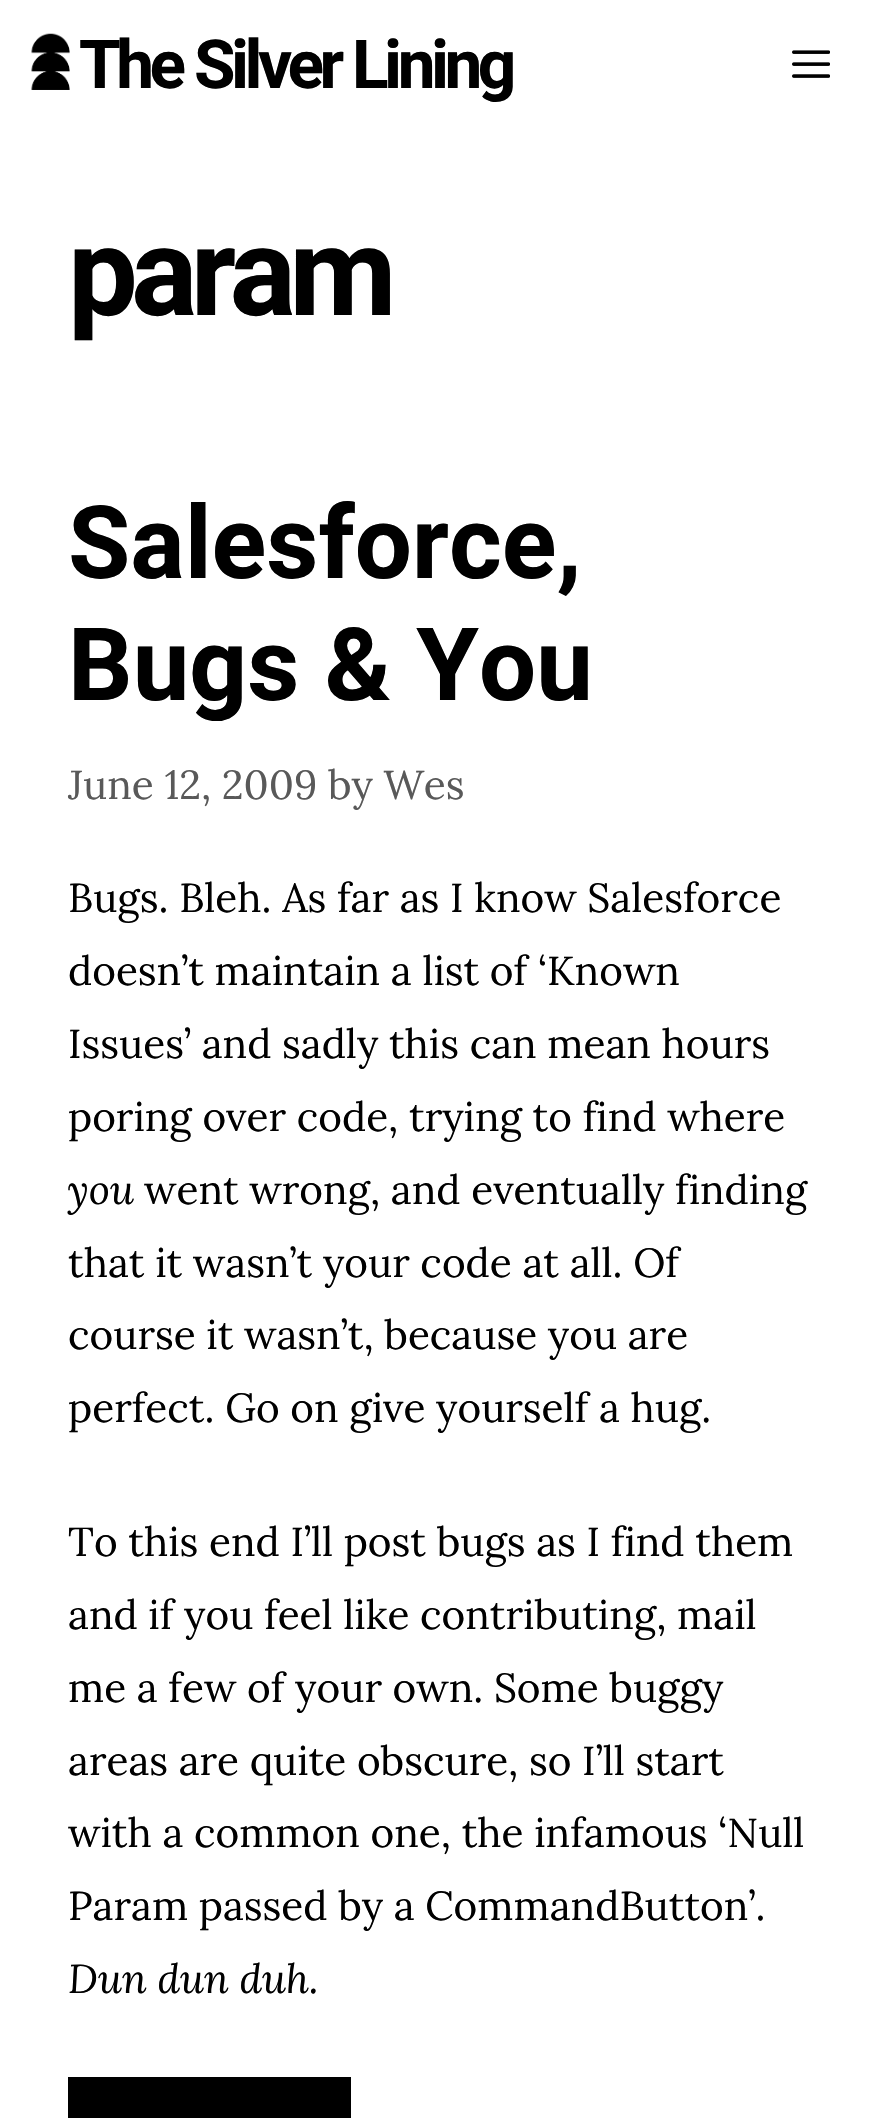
void draw(SkCanvas* canvas) {
  SkPaint paint;
  paint.setAntiAlias(true);
  auto face = [&](const char* family, int weight, float size, bool italic = false) {
    SkFontStyle style(weight, SkFontStyle::kNormal_Width,
      italic ? SkFontStyle::kItalic_Slant : SkFontStyle::kUpright_Slant);
    SkFont result(fontMgr->matchFamilyStyle(family, style), size);
    result.setSubpixel(true);
    return result;
  };
  auto writeSpaced = [&](const char* s, float x, float y, const SkFont& font, const SkPaint& ink, float letter, float word) {
    std::vector<SkGlyphID> glyphs(font.countText(s, strlen(s), SkTextEncoding::kUTF8));
    std::vector<float> xs(glyphs.size());
    font.textToGlyphs(s, strlen(s), SkTextEncoding::kUTF8, glyphs);
    font.getXPos(glyphs, xs, x);
    float extra = 0;
    for (size_t i = 0; i < glyphs.size(); i++) {
      xs[i] += extra;
      extra += letter + word * (glyphs[i] == font.unicharToGlyph(' '));
    }
    canvas->drawTextBlob(SkTextBlob::MakeFromPosHGlyphs(glyphs, xs, y, font), 0, 0, ink);
  };
  auto paste = [&](const char* path, float x, float y, float w, float h) {
    auto image = SkImages::DeferredFromEncodedData(SkData::MakeFromFileName(path));
    canvas->drawImageRect(image, SkRect::MakeXYWH(x, y, w, h), SkSamplingOptions());
  };
  canvas->clear(0xffffffff);
  paste("img/1.png", 31, 33, 39, 57);
  paste("img/2.png", 792, 50, 38, 28);
  paint.setColor(0xff000000);
  canvas->drawRect(SkRect::MakeXYWH(68, 2077, 283, 41), paint);
  auto f0 = face("Heebo", 700, 67.5f);
  writeSpaced("The Silver Lining", 79, 88, f0, paint, -4.5f, 0);
  auto f1 = face("Heebo", 700, 124);
  writeSpaced("param", 68, 315, f1, paint, -6.75f, 0);
  auto f2 = face("Heebo", 700, 101.25f);
  canvas->drawString("Salesforce,", 68, 578, f2, paint);
  canvas->drawString("Bugs & You", 68, 700, f2, paint);
  auto f3 = face("Lora", 400, 40.5f);
  paint.setColor(0xff595959);
  canvas->drawString("June 12, 2009 by Wes", 68, 799, f3, paint);
  paint.setColor(0xff000000);
  {
    const struct { const char* s; float x, y; } items[] = {
      {"Bugs. Bleh. As far as I know Salesforce", 68, 912},
      {"doesn’t maintain a list of ‘Known", 68, 985},
      {"Issues’ and sadly this can mean hours", 68, 1058},
      {"poring over code, trying to find where", 68, 1131},
    };
    for (auto [s, x, y] : items) {
      canvas->drawString(s, x, y, f3, paint);
    }
  }
  auto f4 = face("Lora", 400, 40.5f, true);
  canvas->drawString("you", 68, 1204, f4, paint);
  {
    const struct { const char* s; float x, y; } items[] = {
      {"went wrong, and eventually finding", 144, 1204},
      {"that it wasn’t your code at all. Of", 68, 1277},
      {"course it wasn’t, because you are", 68, 1349},
      {"perfect. Go on give yourself a hug.", 68, 1422},
      {"To this end I’ll post bugs as I find them", 68, 1556},
      {"and if you feel like contributing, mail", 68, 1629},
      {"me a few of your own. Some buggy", 68, 1702},
      {"areas are quite obscure, so I’ll start", 68, 1775},
      {"with a common one, the infamous ‘Null", 68, 1847},
      {"Param passed by a CommandButton’.", 68, 1920},
    };
    for (auto [s, x, y] : items) {
      canvas->drawString(s, x, y, f3, paint);
    }
  }
  canvas->drawString("Dun dun duh.", 68, 1993, f4, paint);
}
